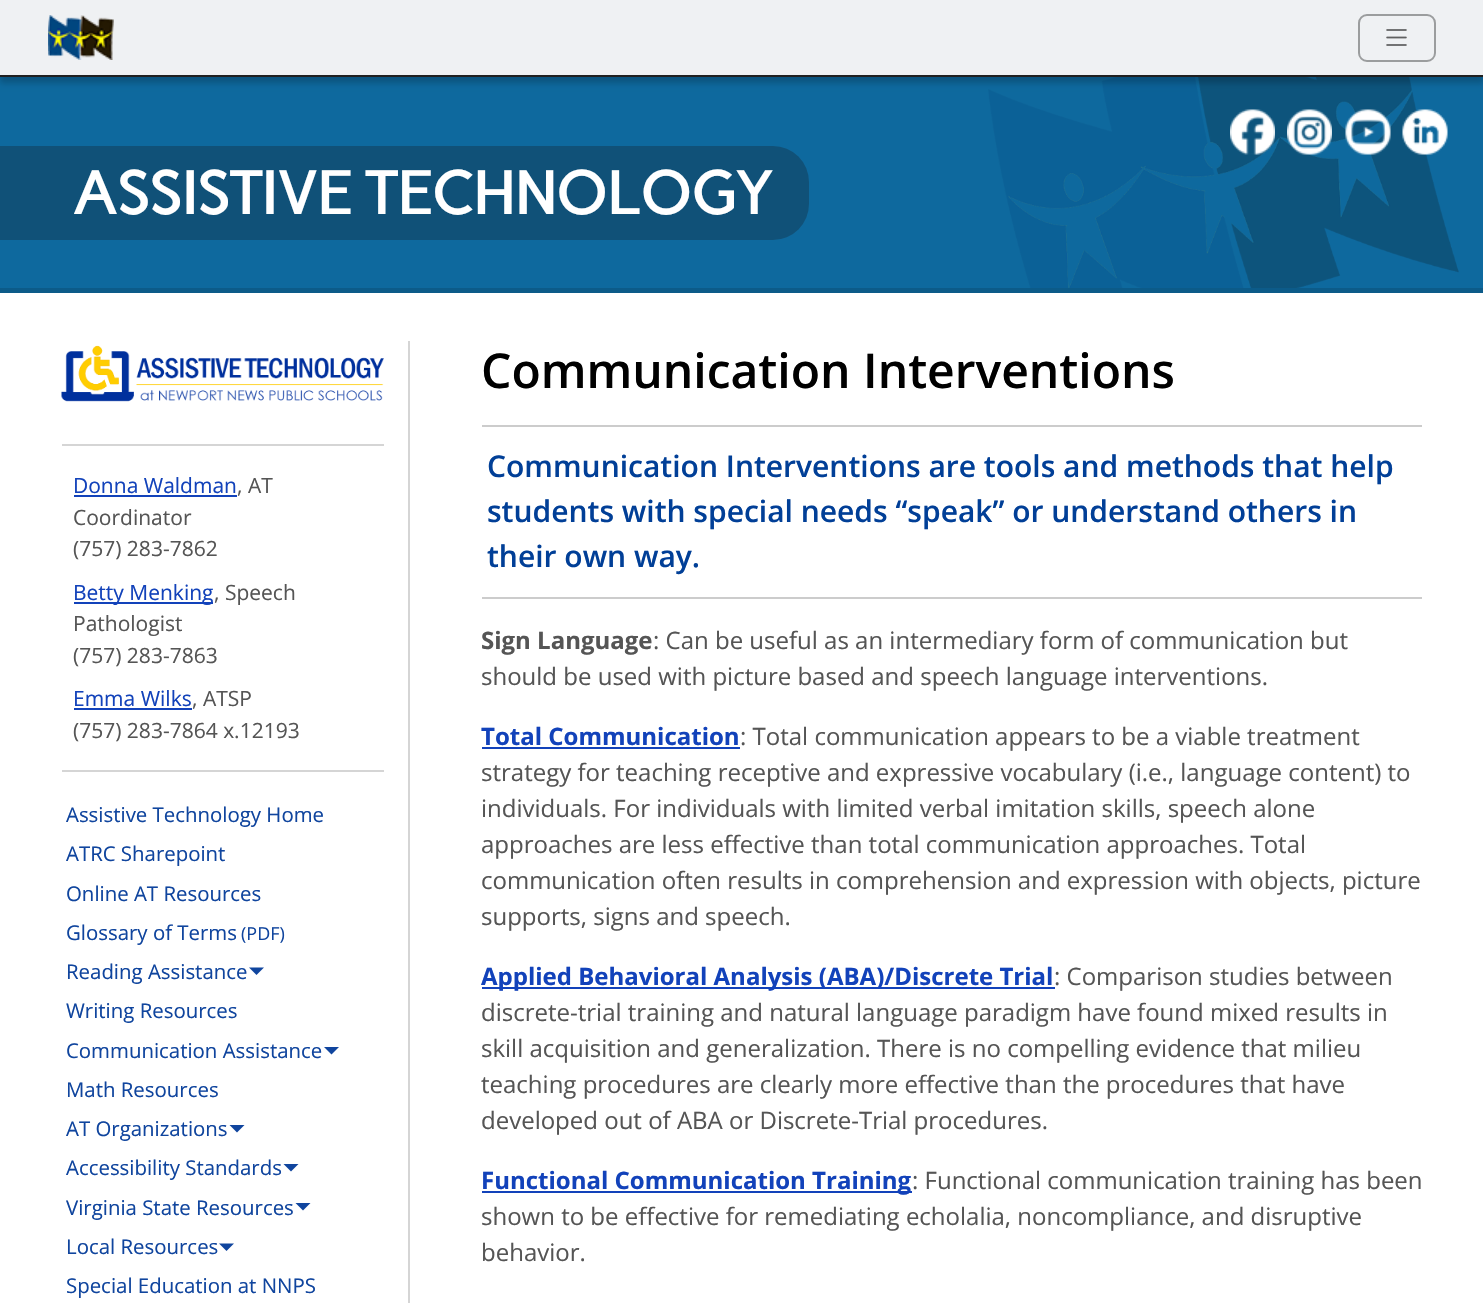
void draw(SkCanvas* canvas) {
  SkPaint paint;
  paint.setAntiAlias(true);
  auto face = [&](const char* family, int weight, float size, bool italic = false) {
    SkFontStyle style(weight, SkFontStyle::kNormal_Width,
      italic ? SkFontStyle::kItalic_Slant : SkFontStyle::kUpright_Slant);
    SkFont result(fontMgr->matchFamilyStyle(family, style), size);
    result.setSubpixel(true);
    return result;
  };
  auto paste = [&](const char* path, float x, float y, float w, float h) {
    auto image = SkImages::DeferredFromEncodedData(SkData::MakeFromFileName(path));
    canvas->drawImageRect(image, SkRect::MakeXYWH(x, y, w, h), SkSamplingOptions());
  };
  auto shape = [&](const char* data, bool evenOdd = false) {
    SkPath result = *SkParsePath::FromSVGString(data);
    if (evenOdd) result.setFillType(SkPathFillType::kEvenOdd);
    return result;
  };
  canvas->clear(0xffffffff);
  paint.setColor(0xff0e699e);
  canvas->drawRect(SkRect::MakeXYWH(0, 77, 1483, 211), paint);
  paste("img/3.png", 988, 77, 471, 211);
  paint.setColor(0x33000000);
  paint.setMaskFilter(SkMaskFilter::MakeBlur(kNormal_SkBlurStyle, 3));
  canvas->drawRect(SkRect::MakeXYWH(0, 6, 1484, 77), paint);
  paint.setMaskFilter(nullptr);
  paint.setColor(0xffeff1f3);
  canvas->drawRect(SkRect::MakeXYWH(0, 0, 1483, 75), paint);
  paint.setColor(0xff202020);
  canvas->drawRect(SkRect::MakeXYWH(0, 75, 1483, 2), paint);
  paste("img/1.png", 48, 15, 66, 45);
  paint.setStroke(true);
  paint.setStrokeWidth(2);
  paint.setColor(0xff9b9d9e);
  canvas->drawRoundRect(SkRect::MakeXYWH(1359, 15, 76, 46), 8, 8, paint);
  paste("img/2.png", 1386, 29, 21, 17);
  paint.setStroke(false);
  paint.setColor(0xff0c5b89);
  canvas->drawRect(SkRect::MakeXYWH(0, 288, 1483, 5), paint);
  paste("img/4.png", 1230, 109, 45, 46);
  paste("img/5.png", 1287, 109, 45, 46);
  paste("img/6.png", 1345, 109, 46, 46);
  paste("img/7.png", 1402, 109, 46, 46);
  paint.setColor(0xff105178);
  canvas->drawRoundRect(SkRect::MakeXYWH(-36, 146, 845, 94), 36, 36, paint);
  paste("img/8.png", 61, 345, 323, 57);
  {
    const struct { float x, y, w, h; SkColor color; } items[] = {
      {62, 444, 322, 2, 0xffd5d5d5},
      {74, 495, 163, 2, 0xff1242ba},
      {74, 602, 139, 2, 0xff1242ba},
      {74, 708, 118, 2, 0xff1242ba},
      {62, 770, 322, 2, 0xffd5d5d5},
    };
    for (auto [x, y, w, h, color] : items) {
      paint.setColor(color);
      canvas->drawRect(SkRect::MakeXYWH(x, y, w, h), paint);
    }
  }
  paint.setColor(0xff10459e);
  canvas->drawPath(shape("M249 967.5H264L256.5 975Z"), paint);
  canvas->drawPath(shape("M324 1047H339L331.5 1054.5Z"), paint);
  canvas->drawPath(shape("M229.5 1125H244.5L237 1132.5Z"), paint);
  canvas->drawPath(shape("M283.5 1164H298.5L291 1171.5Z"), paint);
  canvas->drawPath(shape("M295.5 1203H310.5L303 1210.5Z"), paint);
  canvas->drawPath(shape("M219 1243.5H234L226.5 1251Z"), paint);
  {
    const struct { float x, y, w, h; SkColor color; } items[] = {
      {408, 341, 2, 962, 0xffd5d5d5},
      {482, 425, 940, 2, 0xffcccccc},
      {482, 597, 940, 2, 0xffcccccc},
      {482, 747, 258, 2, 0xff1242ba},
      {482, 987, 573, 2, 0xff1242ba},
      {482, 1191, 430, 2, 0xff1242ba},
    };
    for (auto [x, y, w, h, color] : items) {
      paint.setColor(color);
      canvas->drawRect(SkRect::MakeXYWH(x, y, w, h), paint);
    }
  }
  auto f0 = face("Carme", 700, 60);
  paint.setColor(0xffffffff);
  canvas->drawString("ASSISTIVE TECHNOLOGY", 72, 214, f0, paint);
  auto f1 = face("Open Sans", 400, 21);
  paint.setColor(0xff1242ba);
  canvas->drawString("Donna Waldman", 73, 493, f1, paint);
  paint.setColor(0xff555555);
  {
    const struct { const char* s; float x, y; } items[] = {
      {", AT", 237, 493},
      {"Coordinator", 73, 525},
      {"(757) 283-7862", 73, 556},
    };
    for (auto [s, x, y] : items) {
      canvas->drawString(s, x, y, f1, paint);
    }
  }
  paint.setColor(0xff1242ba);
  canvas->drawString("Betty Menking", 73, 600, f1, paint);
  paint.setColor(0xff555555);
  {
    const struct { const char* s; float x, y; } items[] = {
      {", Speech", 214, 600},
      {"Pathologist", 73, 631},
      {"(757) 283-7863", 73, 663},
    };
    for (auto [s, x, y] : items) {
      canvas->drawString(s, x, y, f1, paint);
    }
  }
  paint.setColor(0xff1242ba);
  canvas->drawString("Emma Wilks", 73, 706, f1, paint);
  paint.setColor(0xff555555);
  canvas->drawString(", ATSP", 192, 706, f1, paint);
  canvas->drawString("(757) 283-7864 x.12193", 73, 738, f1, paint);
  auto f2 = face("Open Sans", 400, 20.4f);
  paint.setColor(0xff10459e);
  {
    const struct { const char* s; float x, y; } items[] = {
      {"Assistive Technology Home", 66, 822},
      {"ATRC Sharepoint", 66, 861},
      {"Online AT Resources", 66, 901},
      {"Glossary of Terms", 66, 940},
    };
    for (auto [s, x, y] : items) {
      canvas->drawString(s, x, y, f2, paint);
    }
  }
  auto f3 = face("Open Sans", 400, 18);
  canvas->drawString("(PDF)", 241, 940, f3, paint);
  {
    const struct { const char* s; float x, y; } items[] = {
      {"Reading Assistance", 66, 979},
      {"Writing Resources", 66, 1018},
      {"Communication Assistance", 66, 1058},
      {"Math Resources", 66, 1097},
      {"AT Organizations", 66, 1136},
      {"Accessibility Standards", 66, 1175},
      {"Virginia State Resources", 66, 1215},
      {"Local Resources", 66, 1254},
      {"Special Education at NNPS", 66, 1293},
    };
    for (auto [s, x, y] : items) {
      canvas->drawString(s, x, y, f2, paint);
    }
  }
  auto f4 = face("Open Sans", 600, 48);
  paint.setColor(0xff000000);
  canvas->drawString("Communication Interventions", 481, 388, f4, paint);
  auto f5 = face("Open Sans", 600, 30);
  paint.setColor(0xff013f97);
  {
    const struct { const char* s; float x, y; } items[] = {
      {"Communication Interventions are tools and methods that help", 487, 477},
      {"students with special needs “speak” or understand others in", 487, 522},
      {"their own way.", 487, 567},
    };
    for (auto [s, x, y] : items) {
      canvas->drawString(s, x, y, f5, paint);
    }
  }
  auto f6 = face("Open Sans", 700, 24);
  paint.setColor(0xff555555);
  canvas->drawString("Sign Language", 481, 649, f6, paint);
  auto f7 = face("Open Sans", 400, 24);
  canvas->drawString(": Can be useful as an intermediary form of communication but", 653, 649, f7, paint);
  canvas->drawString("should be used with picture based and speech language interventions.", 481, 685, f7, paint);
  paint.setColor(0xff1242ba);
  canvas->drawString("Total Communication", 481, 745, f6, paint);
  paint.setColor(0xff555555);
  {
    const struct { const char* s; float x, y; } items[] = {
      {": Total communication appears to be a viable treatment", 740, 745},
      {"strategy for teaching receptive and expressive vocabulary (i.e., language content) to", 481, 781},
      {"individuals. For individuals with limited verbal imitation skills, speech alone", 481, 817},
      {"approaches are less effective than total communication approaches. Total", 481, 853},
      {"communication often results in comprehension and expression with objects, picture", 481, 889},
      {"supports, signs and speech.", 481, 925},
    };
    for (auto [s, x, y] : items) {
      canvas->drawString(s, x, y, f7, paint);
    }
  }
  paint.setColor(0xff1242ba);
  canvas->drawString("Applied Behavioral Analysis (ABA)/Discrete Trial", 481, 985, f6, paint);
  paint.setColor(0xff555555);
  {
    const struct { const char* s; float x, y; } items[] = {
      {": Comparison studies between", 1054, 985},
      {"discrete-trial training and natural language paradigm have found mixed results in", 481, 1021},
      {"skill acquisition and generalization. There is no compelling evidence that milieu", 481, 1057},
      {"teaching procedures are clearly more effective than the procedures that have", 481, 1093},
      {"developed out of ABA or Discrete-Trial procedures.", 481, 1129},
    };
    for (auto [s, x, y] : items) {
      canvas->drawString(s, x, y, f7, paint);
    }
  }
  paint.setColor(0xff1242ba);
  canvas->drawString("Functional Communication Training", 481, 1189, f6, paint);
  paint.setColor(0xff555555);
  {
    const struct { const char* s; float x, y; } items[] = {
      {": Functional communication training has been", 912, 1189},
      {"shown to be effective for remediating echolalia, noncompliance, and disruptive", 481, 1225},
      {"behavior.", 481, 1261},
    };
    for (auto [s, x, y] : items) {
      canvas->drawString(s, x, y, f7, paint);
    }
  }
}
